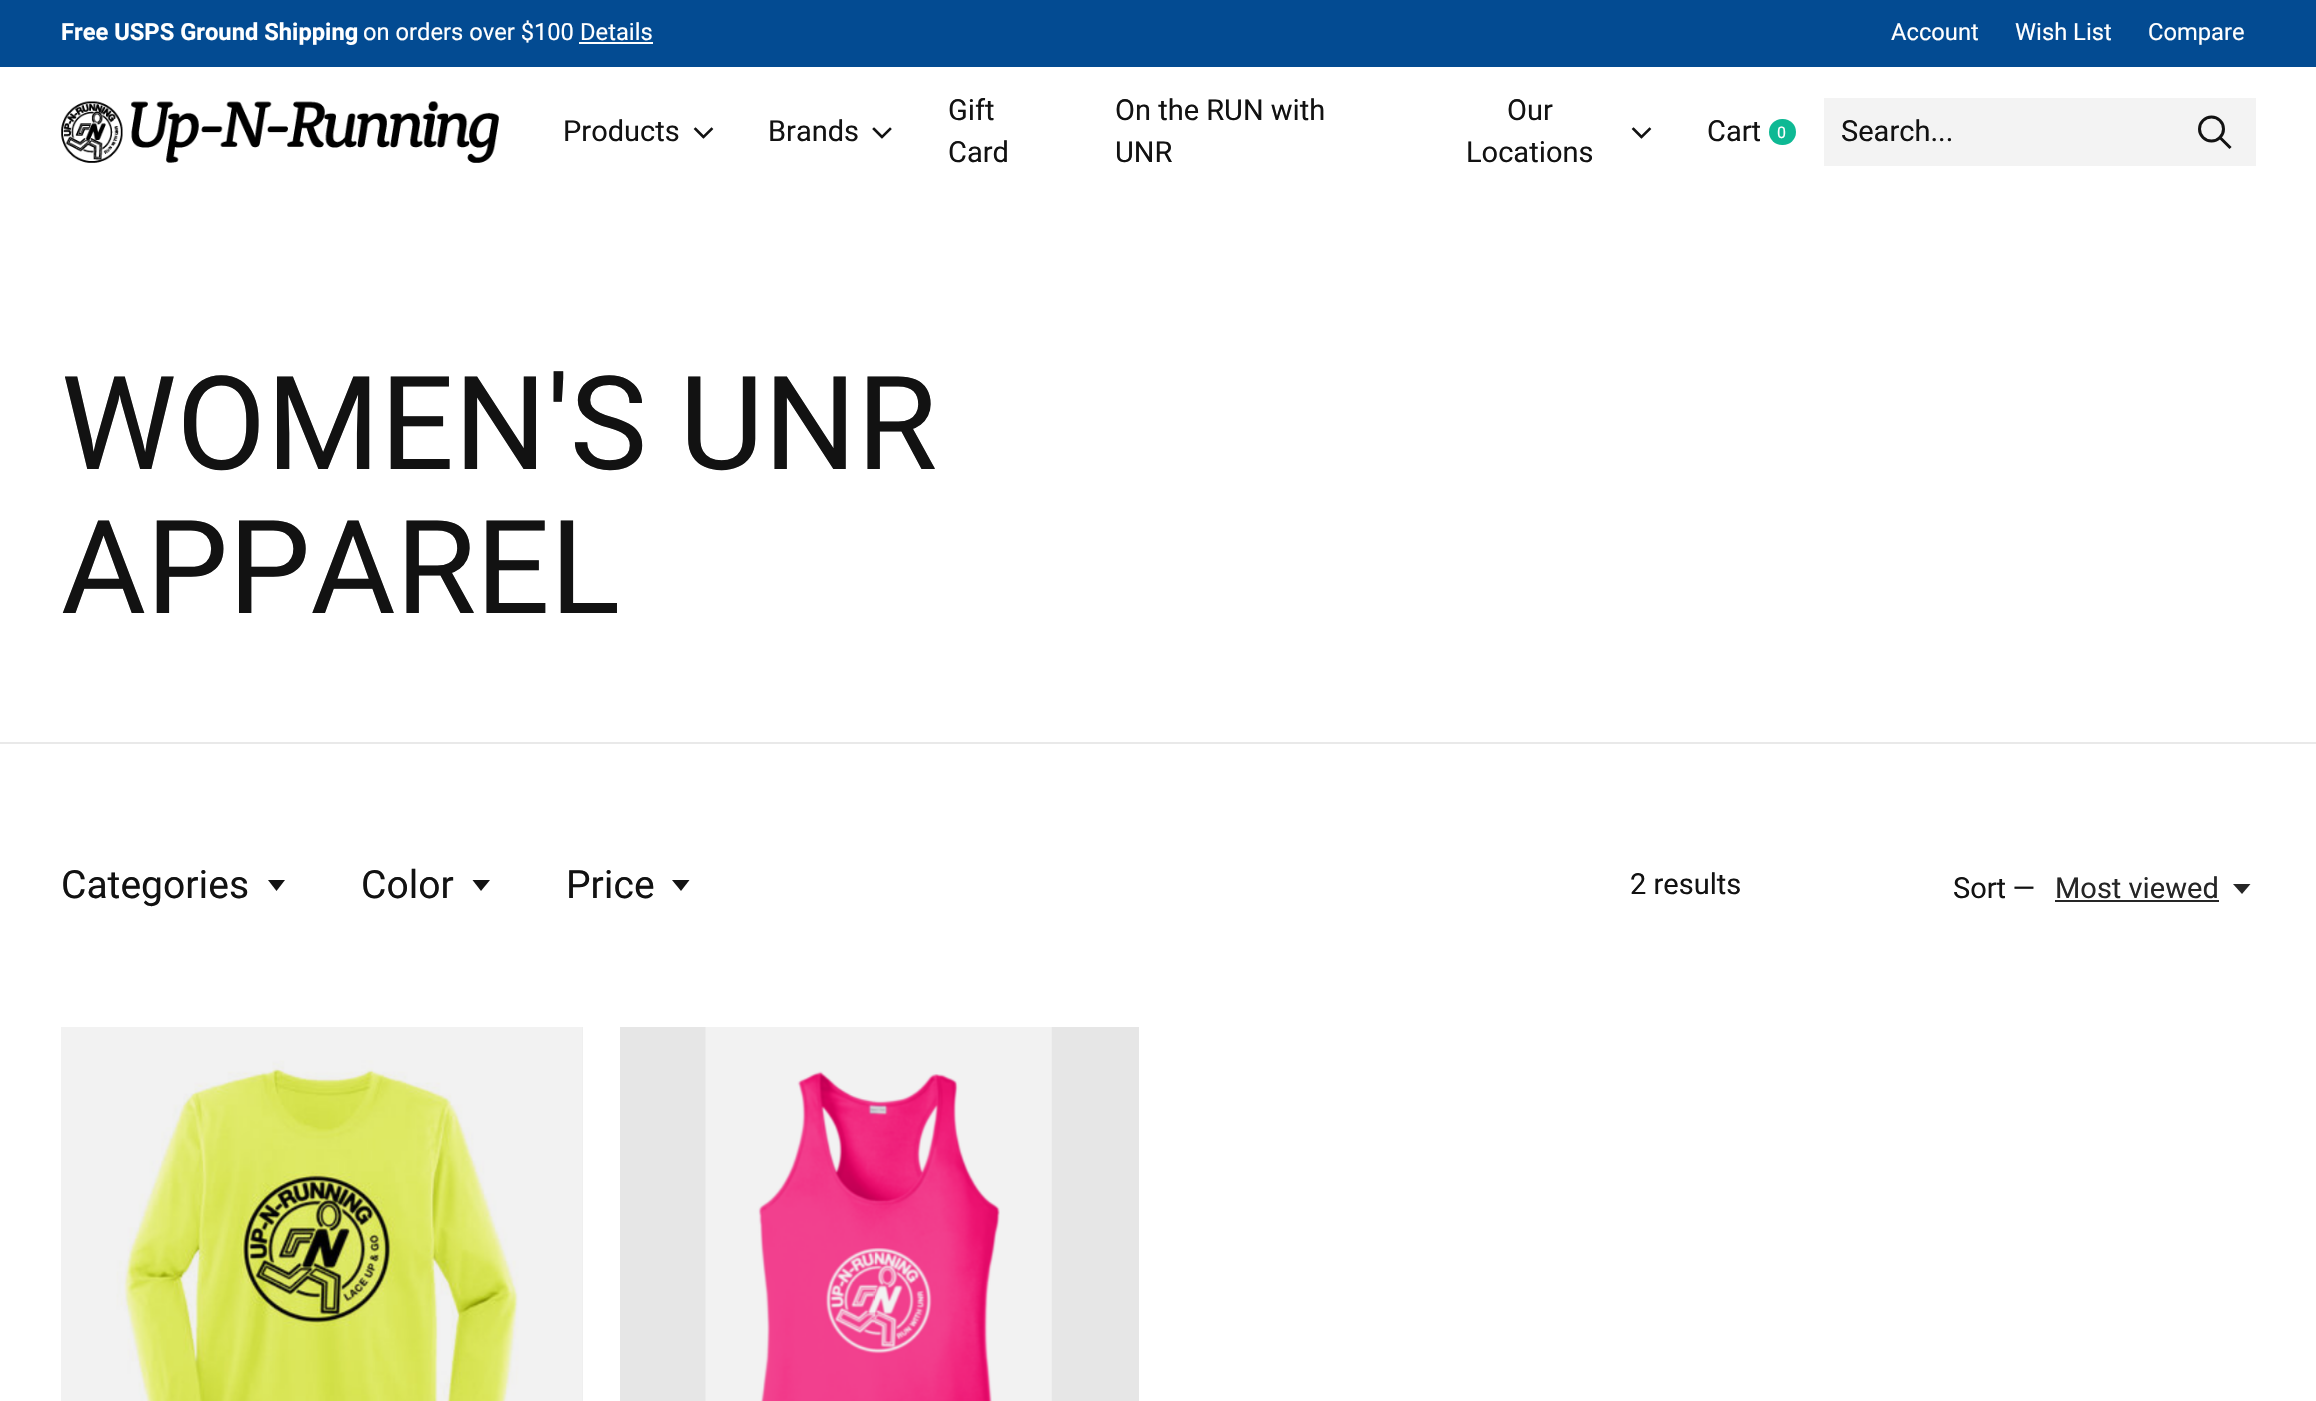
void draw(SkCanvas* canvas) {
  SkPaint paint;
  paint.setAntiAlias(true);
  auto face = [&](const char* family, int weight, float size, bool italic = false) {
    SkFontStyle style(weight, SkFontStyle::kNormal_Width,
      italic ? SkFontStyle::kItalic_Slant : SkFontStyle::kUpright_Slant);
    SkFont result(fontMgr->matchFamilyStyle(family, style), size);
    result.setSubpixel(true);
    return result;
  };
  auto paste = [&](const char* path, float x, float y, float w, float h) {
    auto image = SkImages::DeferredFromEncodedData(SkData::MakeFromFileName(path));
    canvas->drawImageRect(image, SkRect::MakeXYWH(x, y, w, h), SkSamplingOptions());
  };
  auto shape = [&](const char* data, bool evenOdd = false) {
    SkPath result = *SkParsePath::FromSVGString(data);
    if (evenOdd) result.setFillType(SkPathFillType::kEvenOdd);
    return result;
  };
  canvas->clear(0xffffffff);
  paint.setColor(0xff034b92);
  canvas->drawRect(SkRect::MakeXYWH(0, 0, 2316, 67), paint);
  paint.setColor(0xffffffff);
  canvas->drawRect(SkRect::MakeXYWH(579, 42, 74, 2), paint);
  paste("img/1.png", 61, 101, 438, 62);
  paint.setStroke(true);
  paint.setStrokeWidth(2.6f);
  paint.setStrokeCap(SkPaint::kSquare_Cap);
  paint.setColor(0xff121212);
  canvas->drawPath(shape("M695.5 129L703.5 137M711.5 129L703.5 137"), paint);
  canvas->drawPath(shape("M874 129L882 137M890 129L882 137"), paint);
  canvas->drawPath(shape("M1633.5 129L1641.5 137M1649.5 129L1641.5 137"), paint);
  paint.setStroke(false);
  paint.setColor(0xff0eb994);
  canvas->drawRoundRect(SkRect::MakeXYWH(1769, 119, 27, 26), 13, 13, paint);
  paint.setColor(0xfff3f3f3);
  canvas->drawRect(SkRect::MakeXYWH(1824, 98, 432, 68), paint);
  paint.setStroke(true);
  paint.setStrokeWidth(3);
  paint.setColor(0xff121212);
  canvas->drawPath(shape("M2229.5 147L2220 137.5"), paint);
  paint.setStrokeCap(SkPaint::kButt_Cap);
  canvas->drawCircle(2211.5f, 129, 12, paint);
  paint.setStroke(false);
  paint.setColor(0xffe9e9e9);
  canvas->drawRect(SkRect::MakeXYWH(0, 742, 2316, 2), paint);
  paint.setColor(0xff121212);
  canvas->drawPath(shape("M268 880L276.5 891L285 880Z"), paint);
  canvas->drawPath(shape("M472.5 880L481 891L490 880Z"), paint);
  canvas->drawPath(shape("M672 880L681 891L689.5 880Z"), paint);
  paint.setColor(0xff262626);
  canvas->drawRect(SkRect::MakeXYWH(2055, 900, 164, 2), paint);
  canvas->drawPath(shape("M2233 884L2242 894L2250.5 884Z"), paint);
  paint.setColor(0xffe6e6e6);
  canvas->drawRect(SkRect::MakeXYWH(582, 1027, 1, 374), paint);
  paste("img/2.png", 61, 1027, 522, 374);
  canvas->drawRect(SkRect::MakeXYWH(620, 1027, 519, 374), paint);
  paste("img/3.png", 705, 1027, 347, 374);
  auto f0 = face("Heebo", 700, 23.7f);
  paint.setColor(0xffffffff);
  canvas->drawString("Free USPS Ground Shipping", 61, 40, f0, paint);
  auto f1 = face("Heebo", 400, 23.7f);
  {
    const struct { const char* s; float x, y; } items[] = {
      {"on orders over $100", 363, 40},
      {"Details", 580, 40},
      {"Account", 1891, 40},
      {"Wish List", 2015, 40},
      {"Compare", 2148, 40},
    };
    for (auto [s, x, y] : items) {
      canvas->drawString(s, x, y, f1, paint);
    }
  }
  auto f2 = face("Heebo", 400, 29);
  paint.setColor(0xff121212);
  {
    const struct { const char* s; float x, y; } items[] = {
      {"Products", 563, 141},
      {"Brands", 768, 141},
      {"Gift", 948, 120},
      {"Card", 948, 162},
      {"On the RUN with", 1115, 120},
      {"UNR", 1115, 162},
      {"Our", 1507, 120},
      {"Locations", 1466, 162},
      {"Cart", 1707, 141},
    };
    for (auto [s, x, y] : items) {
      canvas->drawString(s, x, y, f2, paint);
    }
  }
  auto f3 = face("Heebo", 400, 16);
  paint.setColor(0xffffffff);
  canvas->drawString("0", 1777, 138, f3, paint);
  paint.setColor(0xff121212);
  canvas->drawString("Search...", 1841, 141, f2, paint);
  auto f4 = face("Heebo", 400, 130.25f);
  canvas->drawString("WOMEN'S UNR", 61, 469, f4, paint);
  canvas->drawString("APPAREL", 61, 613, f4, paint);
  auto f5 = face("Heebo", 400, 39);
  {
    const struct { const char* s; float x, y; } items[] = {
      {"Categories", 61, 898},
      {"Color", 361, 898},
      {"Price", 566, 898},
    };
    for (auto [s, x, y] : items) {
      canvas->drawString(s, x, y, f5, paint);
    }
  }
  canvas->drawString("2 results", 1630, 894, f2, paint);
  canvas->drawString("Sort —", 1953, 898, f2, paint);
  paint.setColor(0xff262626);
  canvas->drawString("Most viewed", 2055, 898, f2, paint);
}
